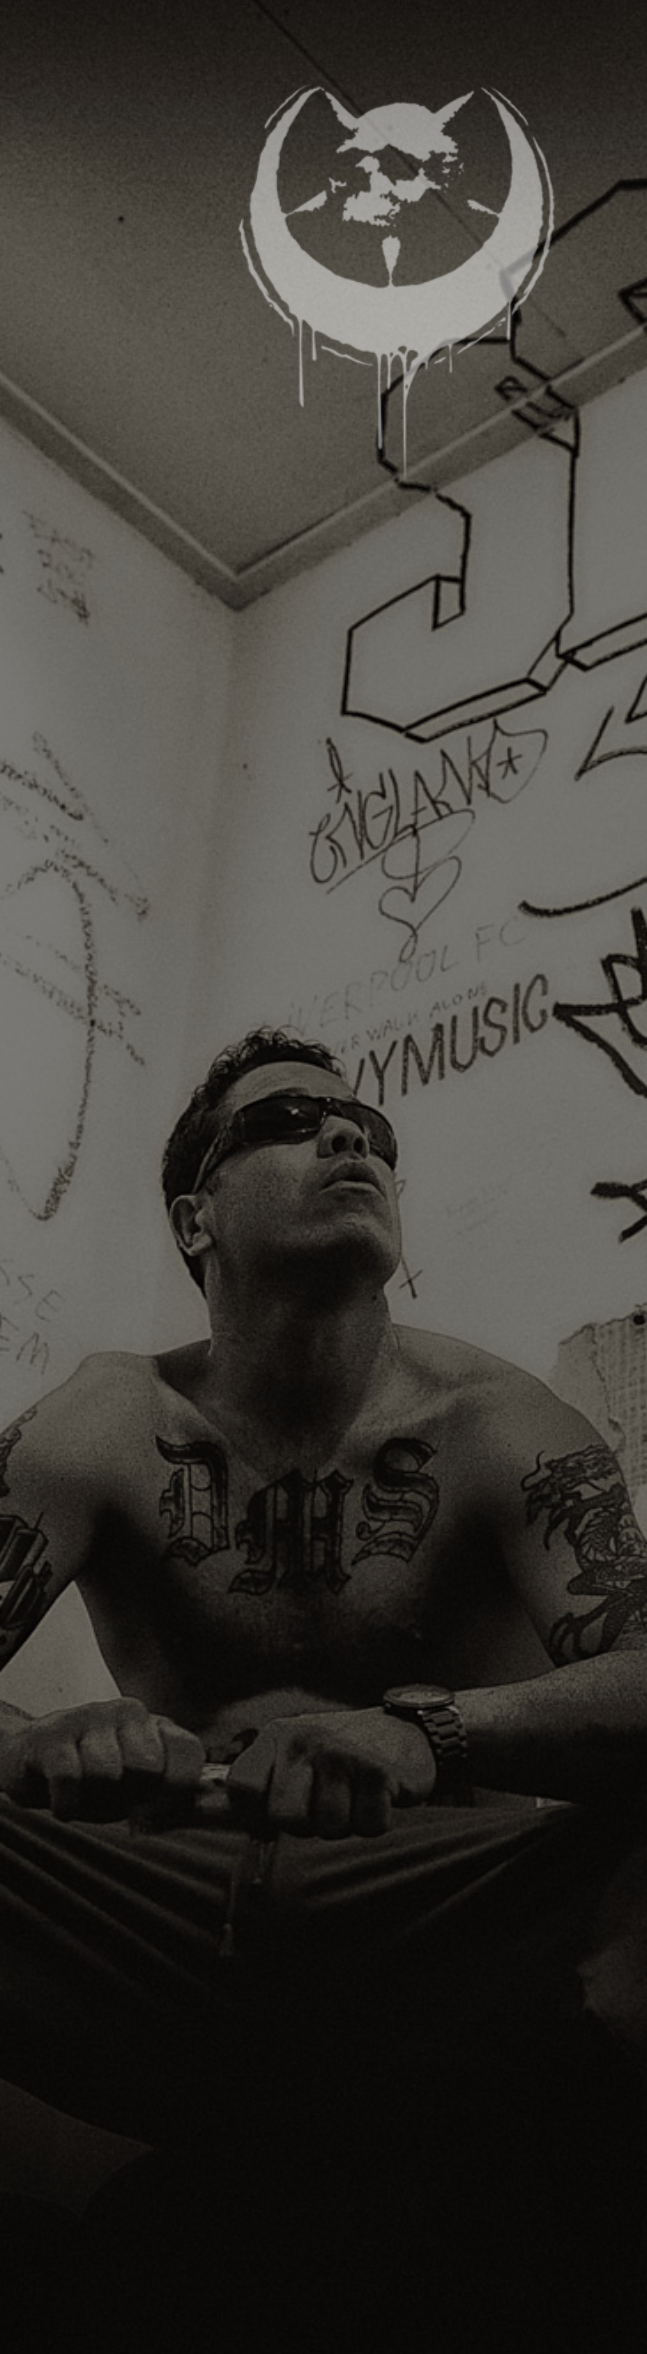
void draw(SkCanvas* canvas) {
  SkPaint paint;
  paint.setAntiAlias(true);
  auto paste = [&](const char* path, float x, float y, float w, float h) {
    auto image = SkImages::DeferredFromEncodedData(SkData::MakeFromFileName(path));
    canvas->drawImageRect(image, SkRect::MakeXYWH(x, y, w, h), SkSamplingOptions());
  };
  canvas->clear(0xff000000);
  paste("img/1.png", 0, 0, 647, 2354);
  paste("img/2.png", 238, 84, 317, 397);
}
